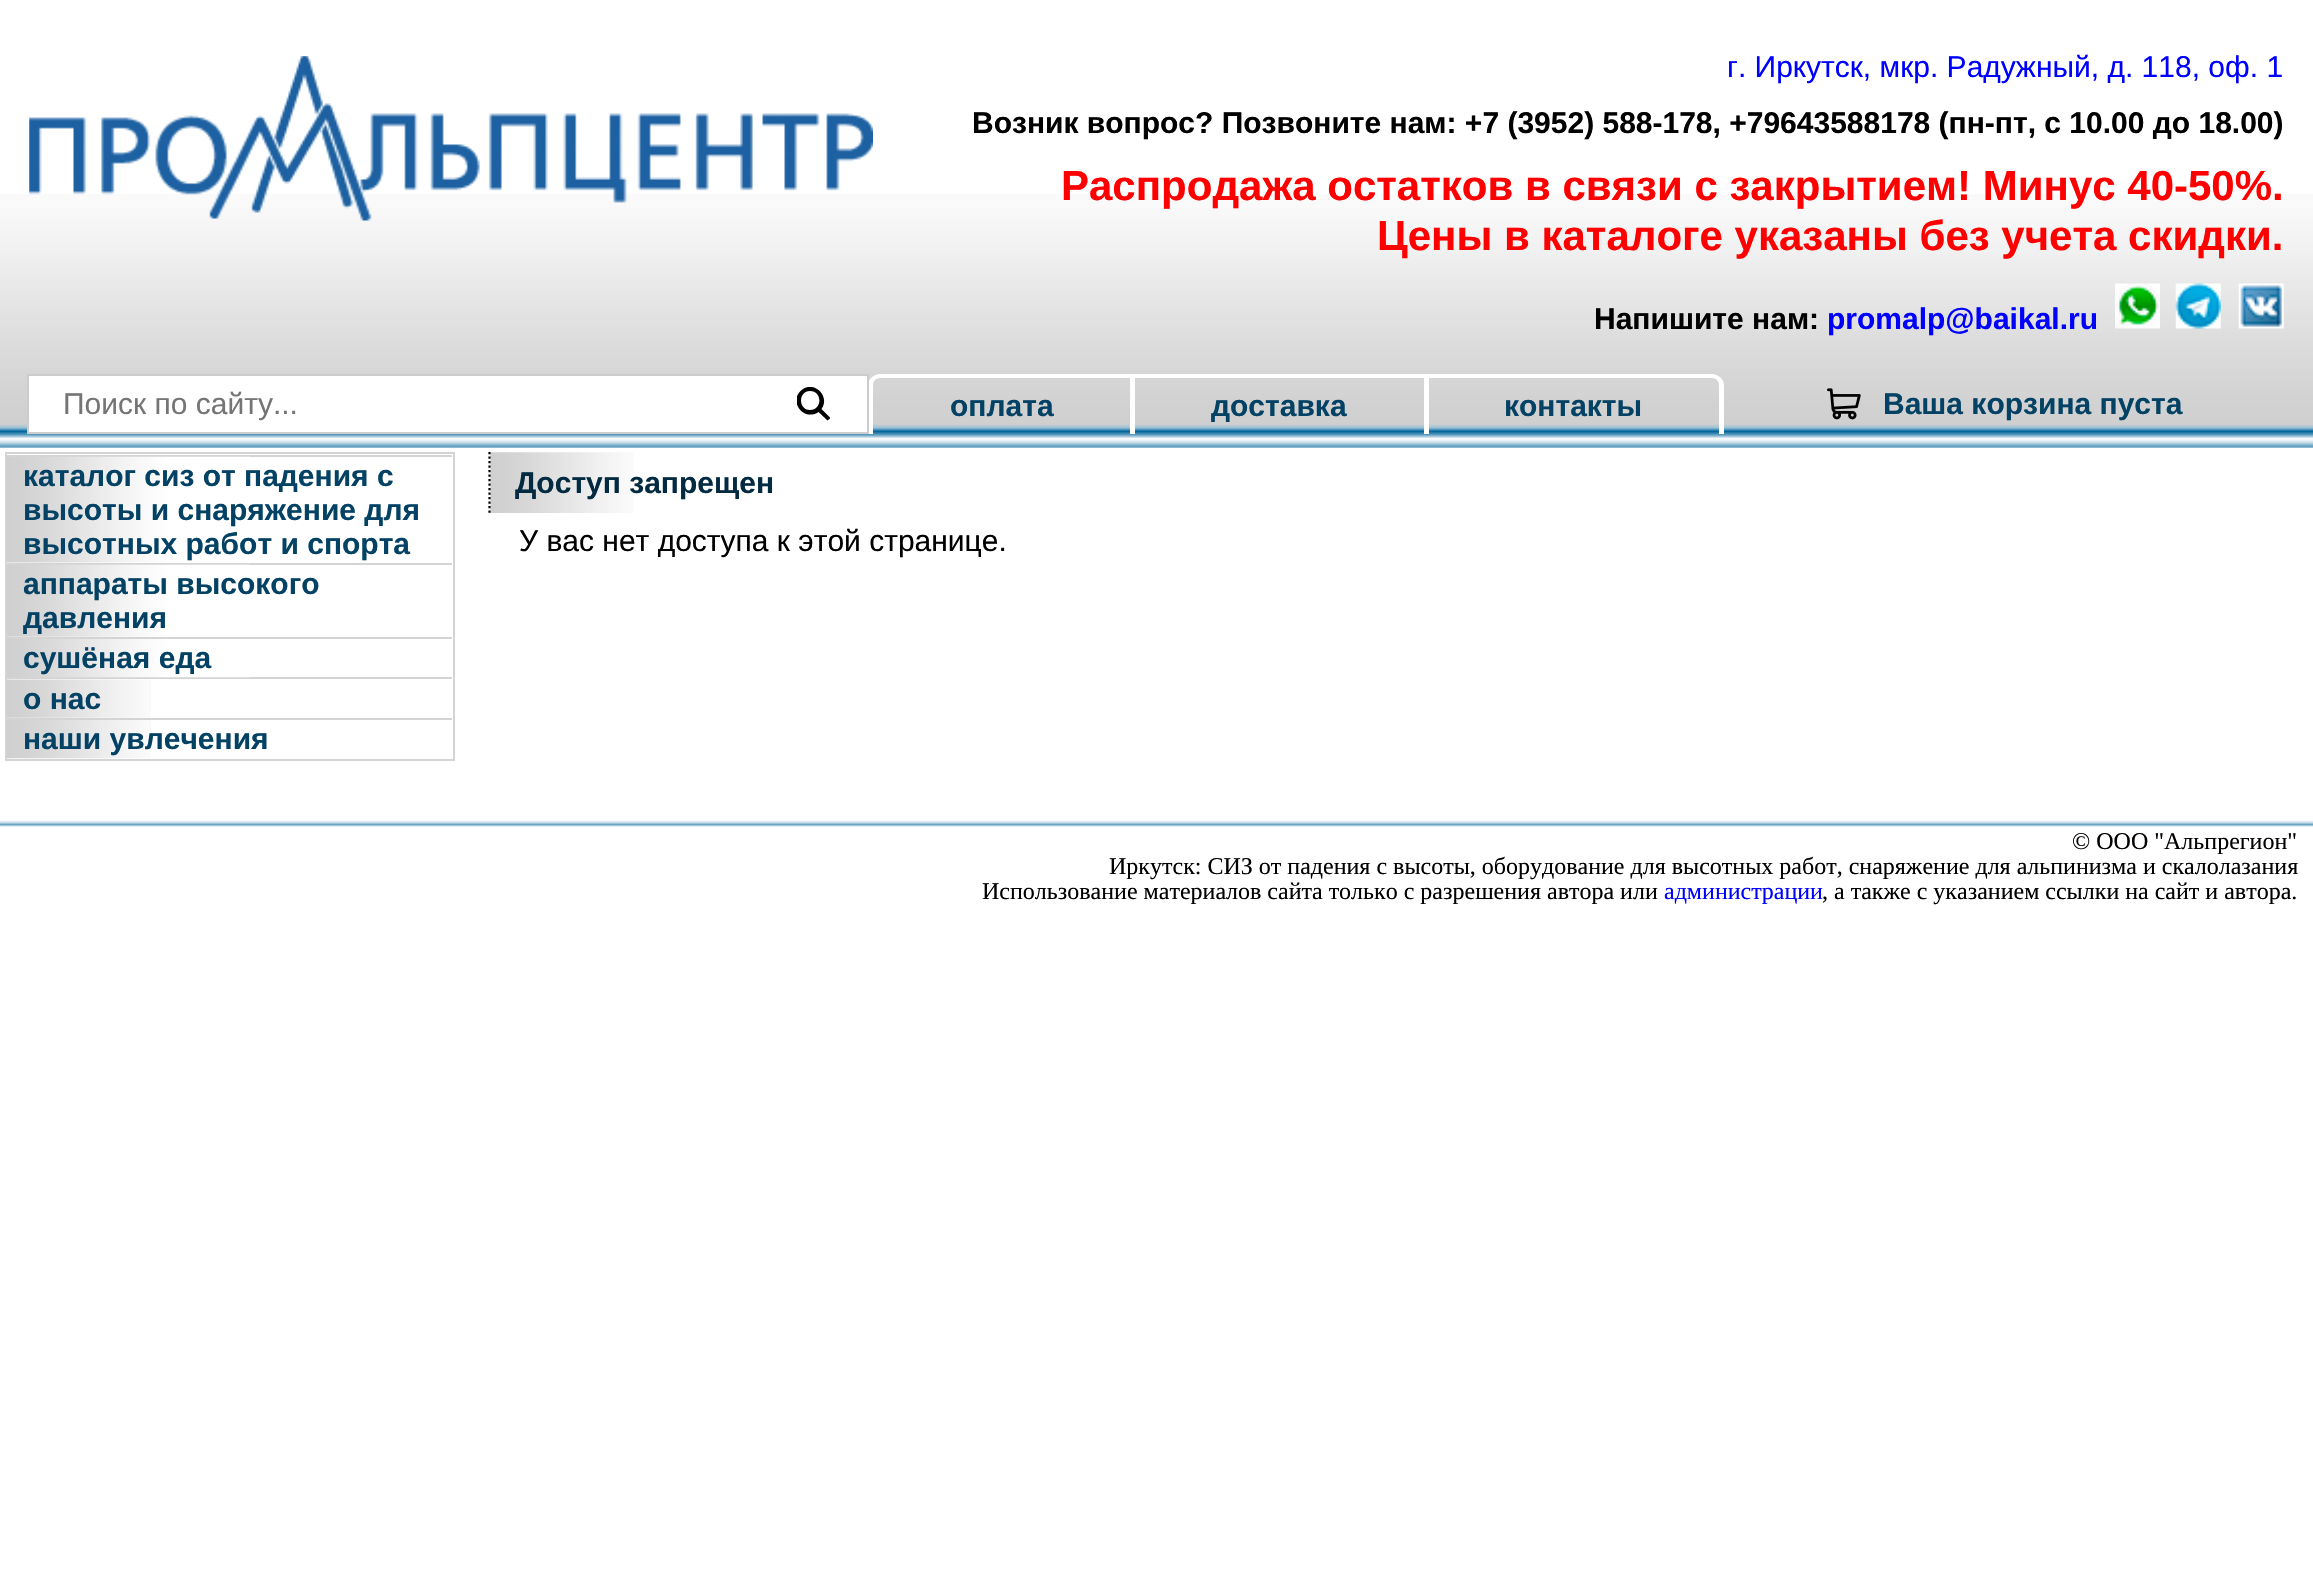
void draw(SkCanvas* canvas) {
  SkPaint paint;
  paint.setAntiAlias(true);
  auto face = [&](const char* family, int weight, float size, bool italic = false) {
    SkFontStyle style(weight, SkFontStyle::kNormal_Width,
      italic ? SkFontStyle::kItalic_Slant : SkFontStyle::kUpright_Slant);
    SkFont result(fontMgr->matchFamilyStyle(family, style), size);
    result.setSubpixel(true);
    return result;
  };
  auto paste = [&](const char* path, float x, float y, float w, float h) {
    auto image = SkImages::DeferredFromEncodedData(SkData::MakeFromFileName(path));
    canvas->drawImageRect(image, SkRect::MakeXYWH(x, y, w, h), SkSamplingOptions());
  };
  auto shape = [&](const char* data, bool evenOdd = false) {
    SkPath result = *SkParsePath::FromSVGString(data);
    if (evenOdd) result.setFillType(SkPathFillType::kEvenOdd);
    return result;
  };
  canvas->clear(0xffffffff);
  paste("img/1.png", 0, 194, 2313, 254);
  paste("img/2.png", 29, 56, 844, 165);
  paste("img/3.png", 2115, 283, 45, 46);
  paste("img/4.png", 2175, 283, 46, 46);
  paste("img/5.png", 2238, 283, 46, 46);
  paint.setColor(0xffffffff);
  canvas->drawPath(shape("M880 374H1712C1718 374 1724 379 1724 385V434H868V385C868 379 874 374 880 374ZM880 378H1712C1716 378 1719 381 1719 385V434H873V385C873 381 876 378 880 378Z", true), paint);
  canvas->drawRect(SkRect::MakeXYWH(28, 375, 840, 58), paint);
  paint.setStroke(true);
  paint.setStrokeWidth(2);
  paint.setColor(0xffcccccc);
  canvas->drawRect(SkRect::MakeXYWH(28, 375, 840, 58), paint);
  canvas->save();
  canvas->clipRect(SkRect::MakeXYWH(797, 387, 33, 34));
  paint.setStroke(false);
  paint.setColor(0xff000000);
  canvas->drawPath(shape("M821.5 409C831 395.5 812.5 379 800.5 391C788.5 403 805 421.5 818.5 412L827.5 420.5L830.5 418ZM810 410C798 410 798 391 810 391C822.5 391 822.5 410 810 410Z"), paint);
  canvas->restore();
  paint.setColor(0xffffffff);
  canvas->drawRect(SkRect::MakeXYWH(1130, 378, 5, 56), paint);
  canvas->drawRect(SkRect::MakeXYWH(1424, 378, 5, 56), paint);
  paste("img/6.png", 1827, 388, 34, 32);
  paint.setStroke(true);
  paint.setColor(0xffd4d4d4);
  canvas->drawRect(SkRect::MakeXYWH(6, 453, 448, 307), paint);
  paint.setStroke(false);
  canvas->drawRect(SkRect::MakeXYWH(7, 455, 445, 2), paint);
  canvas->drawRect(SkRect::MakeXYWH(7, 563, 445, 2), paint);
  paste("img/7.png", 7, 456, 243, 107);
  canvas->drawRect(SkRect::MakeXYWH(7, 637, 445, 2), paint);
  paste("img/8.png", 7, 564, 243, 73);
  canvas->drawRect(SkRect::MakeXYWH(7, 677, 445, 2), paint);
  paste("img/9.png", 7, 639, 243, 39);
  canvas->drawRect(SkRect::MakeXYWH(7, 718, 445, 2), paint);
  paste("img/10.png", 7, 679, 144, 39);
  paste("img/11.png", 7, 720, 144, 39);
  paste("img/12.png", 490, 452, 144, 61);
  paint.setStroke(true);
  paint.setStrokeWidth(2.2f);
  paint.setColor(0xff000000);
  paint.setPathEffect(SkDashPathEffect::Make({{2.25f, 2.25f}}, 0));
  canvas->drawPath(shape("M489.5 452V513"), paint);
  paint.setPathEffect(nullptr);
  paste("img/13.png", 0, 820, 2313, 7);
  auto f0 = face("Liberation Sans", 400, 30);
  paint.setStroke(false);
  paint.setColor(0xff0000ff);
  canvas->drawString("г. Иркутск, мкр. Радужный, д. 118, оф. 1", 1727, 77, f0, paint);
  auto f1 = face("Liberation Sans", 700, 30);
  paint.setColor(0xff000000);
  canvas->drawString("Возник вопрос? Позвоните нам: +7 (3952) 588-178, +79643588178 (пн-пт, с 10.00 до 18.00)", 972, 133, f1, paint);
  auto f2 = face("Liberation Sans", 700, 42);
  paint.setColor(0xffff0000);
  canvas->drawString("Распродажа остатков в связи с закрытием! Минус 40-50%.", 1061, 200, f2, paint);
  canvas->drawString("Цены в каталоге указаны без учета скидки.", 1377, 250, f2, paint);
  paint.setColor(0xff000000);
  canvas->drawString("Напишите нам:", 1594, 329, f1, paint);
  paint.setColor(0xff0000ff);
  canvas->drawString("promalp@baikal.ru", 1827, 329, f1, paint);
  paint.setColor(0xff757575);
  canvas->drawString("Поиск по сайту...", 63, 414, f0, paint);
  paint.setColor(0xff034264);
  {
    const struct { const char* s; float x, y; } items[] = {
      {"оплата", 950, 416},
      {"доставка", 1211, 416},
      {"контакты", 1504, 416},
      {"Ваша корзина пуста", 1883, 414},
      {"каталог сиз от падения с", 23, 486},
      {"высоты и снаряжение для", 23, 520},
      {"высотных работ и спорта", 23, 554},
      {"аппараты высокого", 23, 594},
      {"давления", 23, 628},
      {"сушёная еда", 23, 668},
      {"о нас", 23, 709},
      {"наши увлечения", 23, 749},
    };
    for (auto [s, x, y] : items) {
      canvas->drawString(s, x, y, f1, paint);
    }
  }
  paint.setColor(0xff022b41);
  canvas->drawString("Доступ запрещен", 515, 493, f1, paint);
  paint.setColor(0xff000000);
  canvas->drawString("У вас нет доступа к этой странице.", 519, 551, f0, paint);
  auto f3 = face("Liberation Serif", 400, 24);
  {
    const struct { const char* s; float x, y; } items[] = {
      {"© ООО \"Альпрегион\"", 2072, 849},
      {"Иркутск: СИЗ от падения с высоты, оборудование для высотных работ, снаряжение для альпинизма и скалолазания", 1109, 874},
      {"Использование материалов сайта только с разрешения автора или", 982, 899},
    };
    for (auto [s, x, y] : items) {
      canvas->drawString(s, x, y, f3, paint);
    }
  }
  paint.setColor(0xff0000ff);
  canvas->drawString("администрации", 1664, 899, f3, paint);
  paint.setColor(0xff000000);
  canvas->drawString(", а также с указанием ссылки на сайт и автора.", 1822, 899, f3, paint);
}
